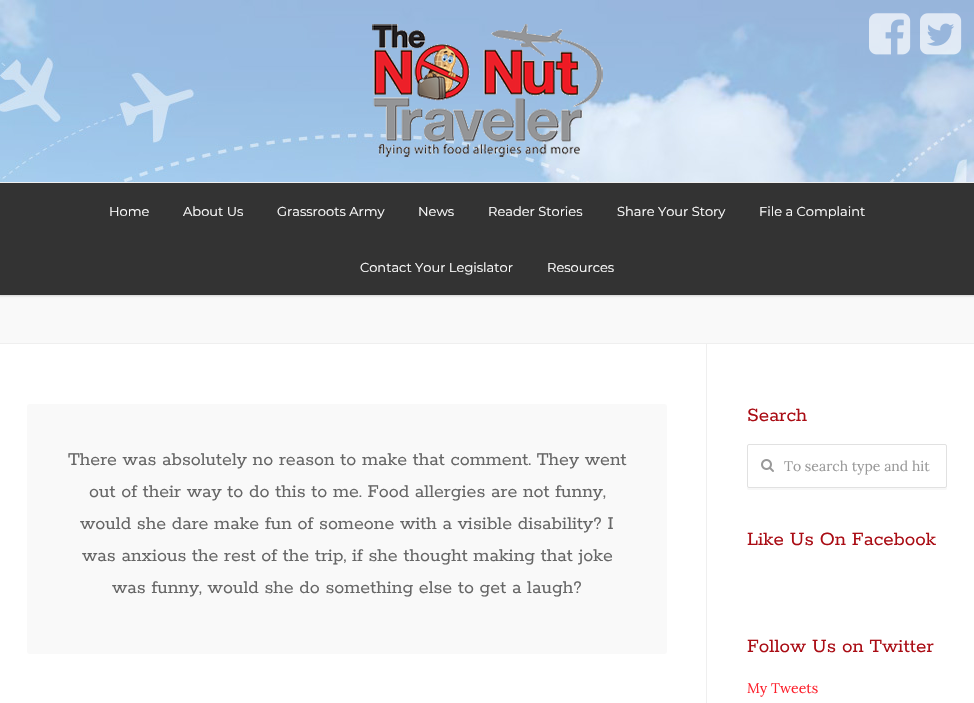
void draw(SkCanvas* canvas) {
  SkPaint paint;
  paint.setAntiAlias(true);
  auto face = [&](const char* family, int weight, float size, bool italic = false) {
    SkFontStyle style(weight, SkFontStyle::kNormal_Width,
      italic ? SkFontStyle::kItalic_Slant : SkFontStyle::kUpright_Slant);
    SkFont result(fontMgr->matchFamilyStyle(family, style), size);
    result.setSubpixel(true);
    return result;
  };
  auto paste = [&](const char* path, float x, float y, float w, float h) {
    auto image = SkImages::DeferredFromEncodedData(SkData::MakeFromFileName(path));
    canvas->drawImageRect(image, SkRect::MakeXYWH(x, y, w, h), SkSamplingOptions());
  };
  auto shape = [&](const char* data, bool evenOdd = false) {
    SkPath result = *SkParsePath::FromSVGString(data);
    if (evenOdd) result.setFillType(SkPathFillType::kEvenOdd);
    return result;
  };
  canvas->clear(0xffffffff);
  paint.setColor(0xfff9f9f9);
  canvas->drawRect(SkRect::MakeXYWH(0, 295, 974, 48), paint);
  paint.setColor(0x29000000);
  paint.setMaskFilter(SkMaskFilter::MakeBlur(kNormal_SkBlurStyle, 1));
  canvas->drawRect(SkRect::MakeXYWH(-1, -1, 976, 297), paint);
  paint.setMaskFilter(nullptr);
  paste("img/1.png", 0, 0, 974, 182);
  paste("img/2.png", 372, 24, 231, 133);
  paste("img/3.png", 869, 13, 42, 42);
  paste("img/4.png", 920, 13, 42, 42);
  {
    const struct { float x, y, w, h; SkColor color; } items[] = {
      {0, 183, 974, 112, 0xff333333},
      {0, 182, 974, 1, 0xffefefef},
      {0, 343, 974, 1, 0xffefefef},
      {706, 344, 1, 359, 0xffefefef},
    };
    for (auto [x, y, w, h, color] : items) {
      paint.setColor(color);
      canvas->drawRect(SkRect::MakeXYWH(x, y, w, h), paint);
    }
  }
  paint.setColor(0xfff9f9f9);
  canvas->drawRoundRect(SkRect::MakeXYWH(27, 404, 640, 250), 3, 3, paint);
  paint.setColor(0xfff7f7f7);
  canvas->drawPath(shape("M747 486C747 488 747 490 749 490H945C947 490 947 488 947 486C947 487 946 488 945 488H749C748 488 747 487 747 486Z"), paint);
  paint.setStroke(true);
  paint.setStrokeWidth(1);
  paint.setColor(0xffe1e1e1);
  canvas->drawRoundRect(SkRect::MakeXYWH(747.5f, 444.5f, 199, 43), 1.5f, 1.5f, paint);
  paste("img/5.png", 761, 459, 13, 13);
  auto f0 = face("Montserrat", 400, 13);
  paint.setStroke(false);
  paint.setColor(0xffffffff);
  {
    const struct { const char* s; float x, y; } items[] = {
      {"Home", 109, 216},
      {"About Us", 183, 216},
      {"Grassroots Army", 277, 216},
      {"News", 418, 216},
      {"Reader Stories", 488, 216},
      {"Share Your Story", 617, 216},
      {"File a Complaint", 759, 216},
      {"Contact Your Legislator", 360, 272},
      {"Resources", 547, 272},
    };
    for (auto [s, x, y] : items) {
      canvas->drawString(s, x, y, f0, paint);
    }
  }
  auto f1 = face("Rokkitt", 400, 20);
  paint.setColor(0xff666666);
  {
    const struct { const char* s; float x, y; } items[] = {
      {"There was absolutely no reason to make that comment. They went", 68, 465},
      {"out of their way to do this to me. Food allergies are not funny,", 89, 497},
      {"would she dare make fun of someone with a visible disability? I", 80, 529},
      {"was anxious the rest of the trip, if she thought making that joke", 82, 561},
      {"was funny, would she do something else to get a laugh?", 112, 593},
    };
    for (auto [s, x, y] : items) {
      canvas->drawString(s, x, y, f1, paint);
    }
  }
  auto f2 = face("Rokkitt", 400, 21);
  paint.setColor(0xffaa0d15);
  canvas->drawString("Search", 747, 421, f2, paint);
  auto f3 = face("Lora", 400, 14);
  paint.setColor(0xff999999);
  canvas->drawString("To search type and hit", 784, 471, f3, paint);
  paint.setColor(0xffaa0d15);
  canvas->drawString("Like Us On Facebook", 747, 545, f2, paint);
  canvas->drawString("Follow Us on Twitter", 747, 652, f2, paint);
  paint.setColor(0xfffd202c);
  canvas->drawString("My Tweets", 747, 693, f3, paint);
}
